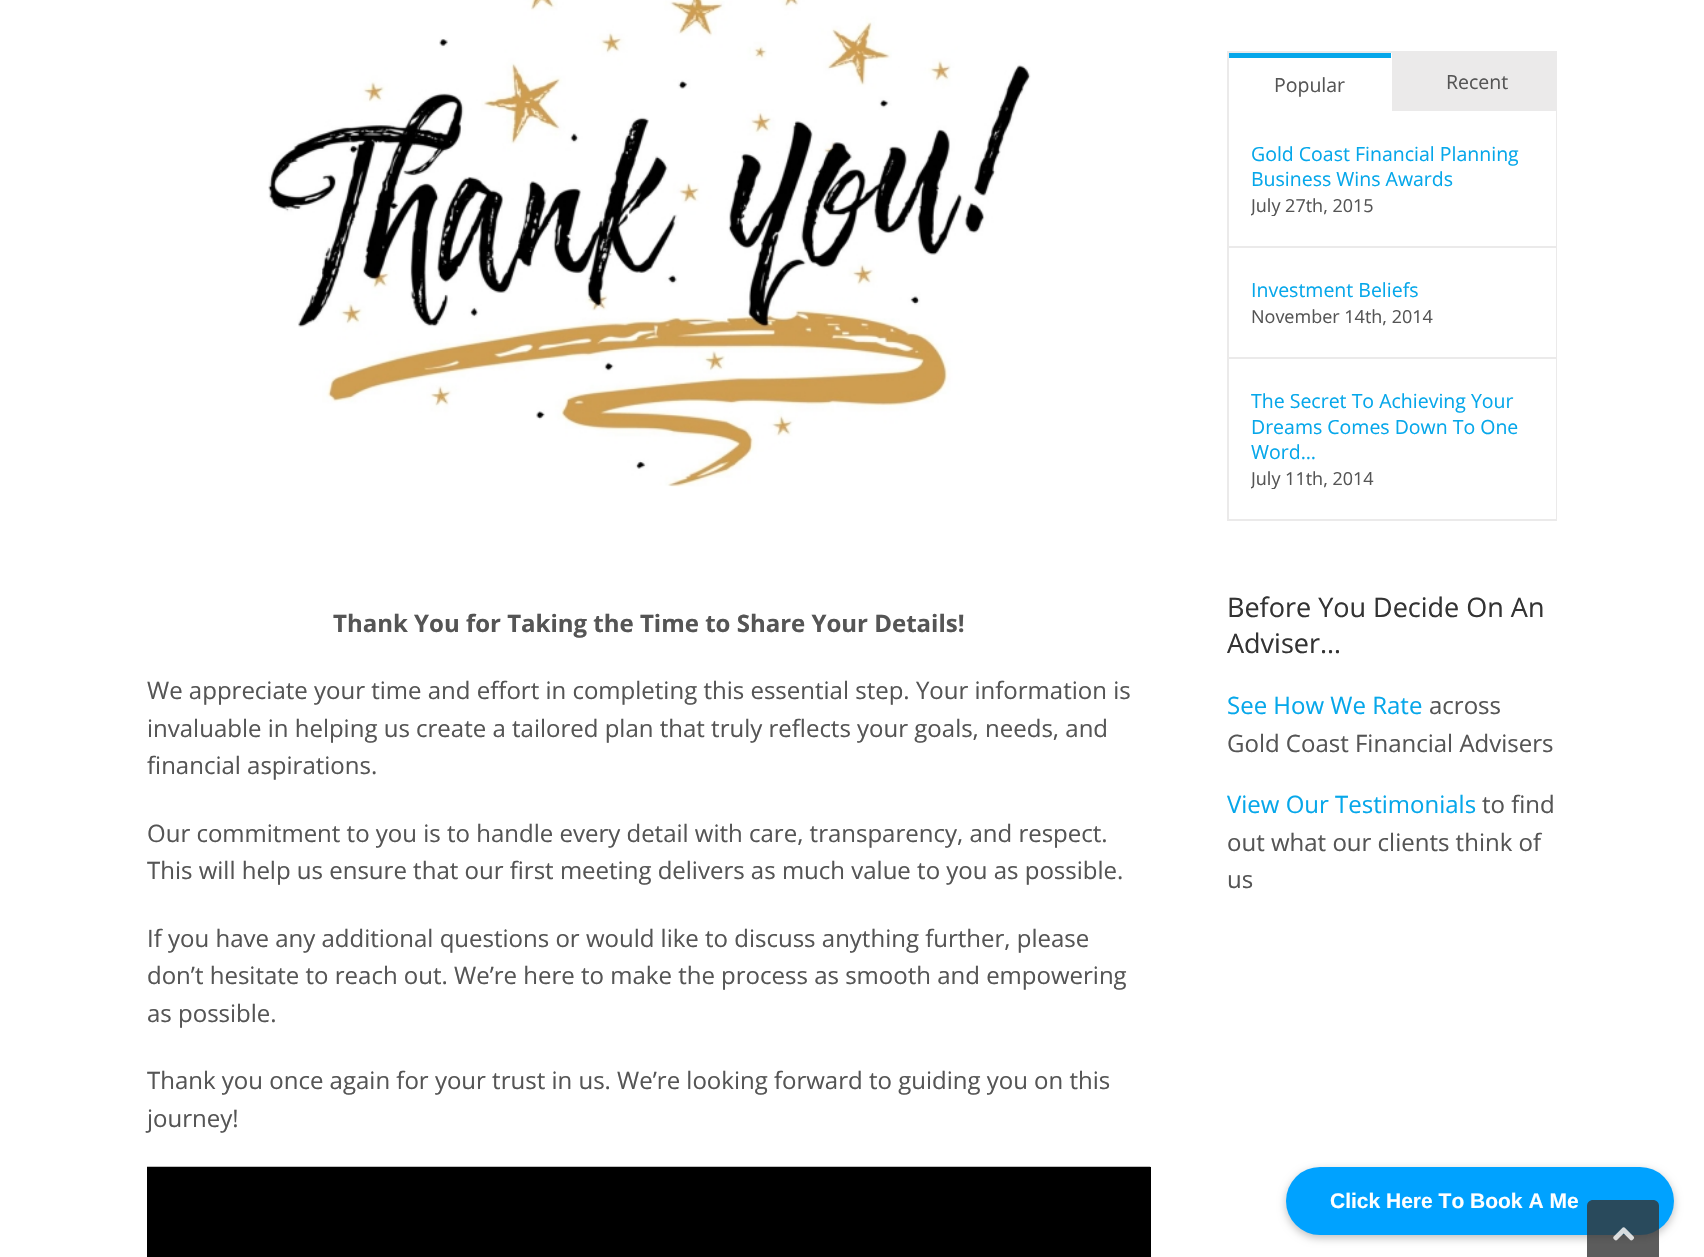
void draw(SkCanvas* canvas) {
  SkPaint paint;
  paint.setAntiAlias(true);
  auto face = [&](const char* family, int weight, float size, bool italic = false) {
    SkFontStyle style(weight, SkFontStyle::kNormal_Width,
      italic ? SkFontStyle::kItalic_Slant : SkFontStyle::kUpright_Slant);
    SkFont result(fontMgr->matchFamilyStyle(family, style), size);
    result.setSubpixel(true);
    return result;
  };
  auto paste = [&](const char* path, float x, float y, float w, float h) {
    auto image = SkImages::DeferredFromEncodedData(SkData::MakeFromFileName(path));
    canvas->drawImageRect(image, SkRect::MakeXYWH(x, y, w, h), SkSamplingOptions());
  };
  auto shape = [&](const char* data, bool evenOdd = false) {
    SkPath result = *SkParsePath::FromSVGString(data);
    if (evenOdd) result.setFillType(SkPathFillType::kEvenOdd);
    return result;
  };
  canvas->clear(0xffffffff);
  paste("img/1.png", 268, 0, 763, 487);
  paint.setColor(0xff000000);
  canvas->drawRect(SkRect::MakeXYWH(147, 1167, 1004, 90), paint);
  paste("img/2.png", 147, 1166, 1004, 1);
  paint.setStroke(true);
  paint.setStrokeWidth(2);
  paint.setColor(0xffebeaea);
  canvas->drawRect(SkRect::MakeXYWH(1228, 52, 328, 468), paint);
  paint.setStroke(false);
  {
    const struct { float x, y, w, h; SkColor color; } items[] = {
      {1229, 53, 162, 5, 0xff06a7ea},
      {1392, 53, 163, 58, 0xffebeaea},
      {1555, 111, 1, 408, 0xffffffff},
      {1229, 246, 327, 2, 0xffebeaea},
      {1229, 357, 327, 2, 0xffebeaea},
    };
    for (auto [x, y, w, h, color] : items) {
      paint.setColor(color);
      canvas->drawRect(SkRect::MakeXYWH(x, y, w, h), paint);
    }
  }
  paint.setColor(0x40000000);
  paint.setMaskFilter(SkMaskFilter::MakeBlur(kNormal_SkBlurStyle, 4));
  canvas->drawRoundRect(SkRect::MakeXYWH(1286, 1170, 388, 68), 34, 34, paint);
  paint.setMaskFilter(nullptr);
  paint.setColor(0xff00a2ff);
  canvas->drawRoundRect(SkRect::MakeXYWH(1286, 1167, 388, 68), 34, 34, paint);
  paint.setColor(0xcc333333);
  canvas->drawPath(shape("M1593 1200H1653C1656.5 1200 1659 1202.5 1659 1206V1257H1587V1206C1587 1202.5 1589.5 1200 1593 1200Z"), paint);
  paste("img/3.png", 1613, 1227, 22, 14);
  auto f0 = face("Open Sans", 700, 24);
  paint.setColor(0xff555555);
  canvas->drawString("Thank You for Taking the Time to Share Your Details!", 333, 632, f0, paint);
  auto f1 = face("Open Sans", 400, 24);
  {
    const struct { const char* s; float x, y; } items[] = {
      {"We appreciate your time and effort in completing this essential step. Your information is", 147, 699},
      {"invaluable in helping us create a tailored plan that truly reflects your goals, needs, and", 147, 737},
      {"financial aspirations.", 147, 774},
      {"Our commitment to you is to handle every detail with care, transparency, and respect.", 147, 842},
      {"This will help us ensure that our first meeting delivers as much value to you as possible.", 147, 879},
      {"If you have any additional questions or would like to discuss anything further, please", 147, 947},
      {"don’t hesitate to reach out. We’re here to make the process as smooth and empowering", 147, 984},
      {"as possible.", 147, 1022},
      {"Thank you once again for your trust in us. We’re looking forward to guiding you on this", 147, 1089},
      {"journey!", 147, 1127},
    };
    for (auto [s, x, y] : items) {
      canvas->drawString(s, x, y, f1, paint);
    }
  }
  auto f2 = face("Open Sans", 400, 19.5f);
  canvas->drawString("Popular", 1274, 92, f2, paint);
  canvas->drawString("Recent", 1446, 89, f2, paint);
  paint.setColor(0xff06a7ea);
  canvas->drawString("Gold Coast Financial Planning", 1251, 161, f2, paint);
  canvas->drawString("Business Wins Awards", 1251, 186, f2, paint);
  canvas->save();
  canvas->clipRect(SkRect::MakeXYWH(1251, 195, 282, 21));
  auto f3 = face("Open Sans", 400, 18);
  paint.setColor(0xff555555);
  canvas->drawString("July 27th, 2015", 1251, 212, f3, paint);
  canvas->restore();
  paint.setColor(0xff06a7ea);
  canvas->drawString("Investment Beliefs", 1251, 297, f2, paint);
  paint.setColor(0xff555555);
  canvas->drawString("November 14th, 2014", 1251, 323, f3, paint);
  paint.setColor(0xff06a7ea);
  {
    const struct { const char* s; float x, y; } items[] = {
      {"The Secret To Achieving Your", 1251, 408},
      {"Dreams Comes Down To One", 1251, 434},
      {"Word…", 1251, 459},
    };
    for (auto [s, x, y] : items) {
      canvas->drawString(s, x, y, f2, paint);
    }
  }
  canvas->save();
  canvas->clipRect(SkRect::MakeXYWH(1251, 468, 282, 21));
  paint.setColor(0xff555555);
  canvas->drawString("July 11th, 2014", 1251, 485, f3, paint);
  canvas->restore();
  auto f4 = face("Open Sans", 400, 27);
  paint.setColor(0xff333333);
  canvas->drawString("Before You Decide On An", 1227, 617, f4, paint);
  canvas->drawString("Adviser…", 1227, 653, f4, paint);
  paint.setColor(0xff06a7ea);
  canvas->drawString("See How We Rate", 1227, 714, f1, paint);
  paint.setColor(0xff555555);
  canvas->drawString("across", 1429, 714, f1, paint);
  canvas->drawString("Gold Coast Financial Advisers", 1227, 752, f1, paint);
  paint.setColor(0xff06a7ea);
  canvas->drawString("View Our Testimonials", 1227, 813, f1, paint);
  paint.setColor(0xff555555);
  {
    const struct { const char* s; float x, y; } items[] = {
      {"to find", 1482, 813},
      {"out what our clients think of", 1227, 851},
      {"us", 1227, 888},
    };
    for (auto [s, x, y] : items) {
      canvas->drawString(s, x, y, f1, paint);
    }
  }
  auto f5 = face("Liberation Sans", 700, 21);
  paint.setColor(0xffffffff);
  canvas->drawString("Click Here To Book A Me", 1330, 1208, f5, paint);
}
